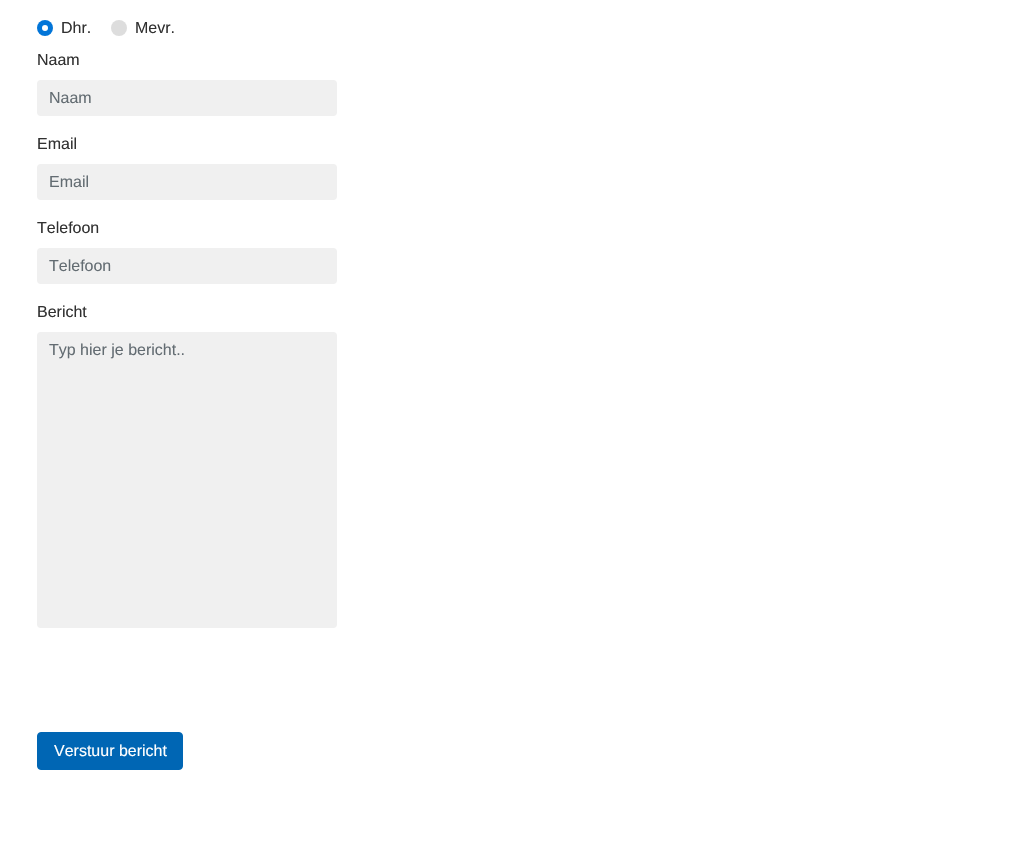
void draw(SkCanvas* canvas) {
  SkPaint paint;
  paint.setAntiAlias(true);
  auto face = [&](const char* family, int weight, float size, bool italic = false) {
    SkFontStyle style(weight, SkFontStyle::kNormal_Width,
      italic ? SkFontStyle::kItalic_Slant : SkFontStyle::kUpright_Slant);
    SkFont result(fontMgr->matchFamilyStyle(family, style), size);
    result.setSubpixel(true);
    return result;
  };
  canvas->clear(0xffffffff);
  paint.setColor(0xff0275d8);
  canvas->drawCircle(45, 28, 8, paint);
  paint.setColor(0xffffffff);
  canvas->drawCircle(45, 28, 3, paint);
  paint.setColor(0xffdddddd);
  canvas->drawCircle(119, 28, 8, paint);
  paint.setColor(0xfff0f0f0);
  canvas->drawRoundRect(SkRect::MakeXYWH(37, 80, 300, 36), 4, 4, paint);
  canvas->drawRoundRect(SkRect::MakeXYWH(37, 164, 300, 36), 4, 4, paint);
  canvas->drawRoundRect(SkRect::MakeXYWH(37, 248, 300, 36), 4, 4, paint);
  canvas->drawRoundRect(SkRect::MakeXYWH(37, 332, 300, 296), 4, 4, paint);
  paint.setColor(0xff0066b4);
  canvas->drawRoundRect(SkRect::MakeXYWH(37.5f, 732.5f, 145, 37), 3.5f, 3.5f, paint);
  paint.setStroke(true);
  paint.setStrokeWidth(1);
  canvas->drawRoundRect(SkRect::MakeXYWH(37.5f, 732.5f, 145, 37), 3.5f, 3.5f, paint);
  auto f0 = face("Liberation Sans", 400, 16);
  paint.setStroke(false);
  paint.setColor(0xff313131);
  {
    const struct { const char* s; float x, y; } items[] = {
      {"Dhr.", 61, 33},
      {"Mevr.", 135, 33},
      {"Naam", 37, 65},
    };
    for (auto [s, x, y] : items) {
      canvas->drawString(s, x, y, f0, paint);
    }
  }
  paint.setColor(0xff636c72);
  canvas->drawString("Naam", 49, 103, f0, paint);
  paint.setColor(0xff313131);
  canvas->drawString("Email", 37, 149, f0, paint);
  paint.setColor(0xff636c72);
  canvas->drawString("Email", 49, 187, f0, paint);
  paint.setColor(0xff313131);
  canvas->drawString("Telefoon", 37, 233, f0, paint);
  paint.setColor(0xff636c72);
  canvas->drawString("Telefoon", 49, 271, f0, paint);
  paint.setColor(0xff313131);
  canvas->drawString("Bericht", 37, 317, f0, paint);
  paint.setColor(0xff636c72);
  canvas->drawString("Typ hier je bericht..", 49, 355, f0, paint);
  paint.setColor(0xffffffff);
  canvas->drawString("Verstuur bericht", 54, 756, f0, paint);
}
